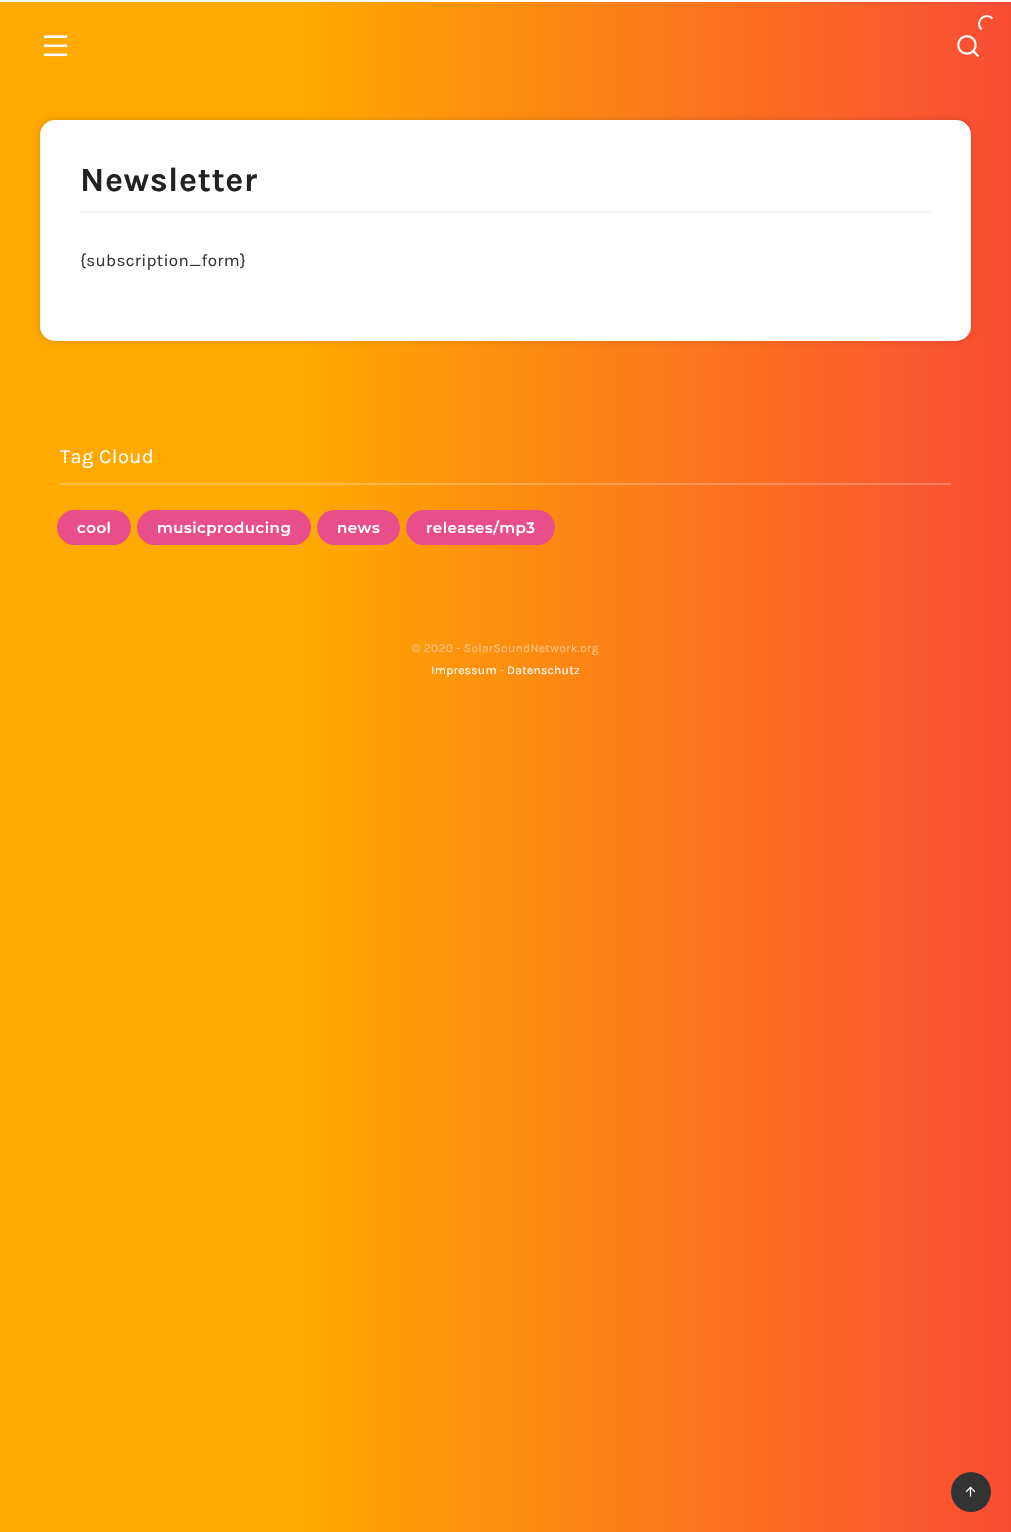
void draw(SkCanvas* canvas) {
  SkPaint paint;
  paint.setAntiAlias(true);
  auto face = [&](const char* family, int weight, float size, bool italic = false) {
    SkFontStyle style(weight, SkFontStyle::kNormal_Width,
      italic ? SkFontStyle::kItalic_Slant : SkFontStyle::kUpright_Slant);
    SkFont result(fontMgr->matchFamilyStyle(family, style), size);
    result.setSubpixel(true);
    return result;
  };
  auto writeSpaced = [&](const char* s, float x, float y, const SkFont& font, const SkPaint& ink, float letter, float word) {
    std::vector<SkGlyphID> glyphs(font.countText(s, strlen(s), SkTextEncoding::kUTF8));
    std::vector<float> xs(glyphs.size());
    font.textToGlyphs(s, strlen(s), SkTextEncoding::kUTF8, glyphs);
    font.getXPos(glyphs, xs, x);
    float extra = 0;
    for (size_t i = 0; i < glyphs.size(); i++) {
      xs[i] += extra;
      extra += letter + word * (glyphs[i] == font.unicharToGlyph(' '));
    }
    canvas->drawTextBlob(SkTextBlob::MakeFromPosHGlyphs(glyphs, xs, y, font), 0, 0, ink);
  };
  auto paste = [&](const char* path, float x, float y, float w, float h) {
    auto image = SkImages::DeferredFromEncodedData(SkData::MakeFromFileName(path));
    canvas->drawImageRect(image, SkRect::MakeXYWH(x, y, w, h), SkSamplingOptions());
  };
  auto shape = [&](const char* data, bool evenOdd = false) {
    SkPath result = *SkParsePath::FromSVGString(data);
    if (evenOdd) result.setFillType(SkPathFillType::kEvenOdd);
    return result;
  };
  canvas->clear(0xffffffff);
  {
    const SkColor colors[] = {0xffffa901, 0xfff94c34};
    const float stops[] = {0.3f, 1};
    const SkPoint ends[] = {{0, 766}, {1011, 766}};
    paint.setShader(SkGradientShader::MakeLinear(ends, colors, stops, 2, SkTileMode::kClamp));
    paint.setAlpha(255);
  }
  canvas->drawRect(SkRect::MakeXYWH(0, 2, 1011, 1530), paint);
  {
    const SkColor colors[] = {0xffffbf41, 0xfffb7967};
    const float stops[] = {0.3f, 1};
    const SkPoint ends[] = {{0, 766}, {1011, 766}};
    paint.setShader(SkGradientShader::MakeLinear(ends, colors, stops, 2, SkTileMode::kClamp));
    paint.setAlpha(255);
  }
  canvas->drawRect(SkRect::MakeXYWH(60, 483, 891, 2), paint);
  paint.setStroke(true);
  paint.setStrokeWidth(2);
  paint.setShader(nullptr);
  paint.setColor(0xffffffff);
  canvas->drawPath(shape("M981.5 29.5C974 22 985 11 992.5 18.5"), paint);
  paste("img/1.png", 43, 35, 25, 22);
  paste("img/2.png", 957, 35, 23, 23);
  paint.setStroke(false);
  paint.setColor(0x26000000);
  paint.setMaskFilter(SkMaskFilter::MakeBlur(kNormal_SkBlurStyle, 3));
  canvas->drawRoundRect(SkRect::MakeXYWH(40, 120, 931, 221), 15, 15, paint);
  paint.setMaskFilter(nullptr);
  paint.setColor(0xffffffff);
  canvas->drawRoundRect(SkRect::MakeXYWH(40, 120, 931, 221), 15, 15, paint);
  paint.setColor(0xfff4f4f4);
  canvas->drawRect(SkRect::MakeXYWH(80, 211, 851, 2), paint);
  paint.setColor(0xffe84e89);
  canvas->drawRoundRect(SkRect::MakeXYWH(57, 510, 74, 35), 17.5f, 17.5f, paint);
  canvas->drawRoundRect(SkRect::MakeXYWH(137, 510, 174, 35), 17.5f, 17.5f, paint);
  canvas->drawRoundRect(SkRect::MakeXYWH(317, 510, 83, 35), 17.5f, 17.5f, paint);
  canvas->drawRoundRect(SkRect::MakeXYWH(406, 510, 149, 35), 17.5f, 17.5f, paint);
  paint.setColor(0xff333333);
  canvas->drawCircle(971, 1492, 20, paint);
  paste("img/3.png", 965, 1486, 11, 11);
  auto f0 = face("Karla", 700, 34);
  paint.setColor(0xff222222);
  writeSpaced("Newsletter", 80, 191, f0, paint, 0.5f, 0);
  auto f1 = face("Karla", 400, 17);
  paint.setColor(0xff333333);
  writeSpaced("{subscription_form}", 80, 266, f1, paint, 0.3f, 0);
  auto f2 = face("Karla", 400, 20);
  paint.setColor(0xffffffff);
  writeSpaced("Tag Cloud", 60, 463, f2, paint, 0.5f, 0);
  auto f3 = face("Montserrat", 600, 15);
  {
    const struct { const char* s; float x, y; } items[] = {
      {"cool", 77, 533},
      {"musicproducing", 157, 533},
      {"news", 337, 533},
      {"releases/mp3", 426, 533},
    };
    for (auto [s, x, y] : items) {
      writeSpaced(s, x, y, f3, paint, 0.5f, 0);
    }
  }
  auto f4 = face("Karla", 400, 12);
  paint.setColor(0xfffec787);
  writeSpaced("© 2020 - SolarSoundNetwork.org", 412, 652, f4, paint, 0.3f, 0);
  paint.setColor(0xffffffff);
  writeSpaced("Impressum", 431, 674, f4, paint, 0.3f, 0);
  paint.setColor(0xfffec787);
  writeSpaced("-", 500, 674, f4, paint, 0.3f, 0);
  paint.setColor(0xffffffff);
  writeSpaced("Datenschutz", 507, 674, f4, paint, 0.3f, 0);
}
